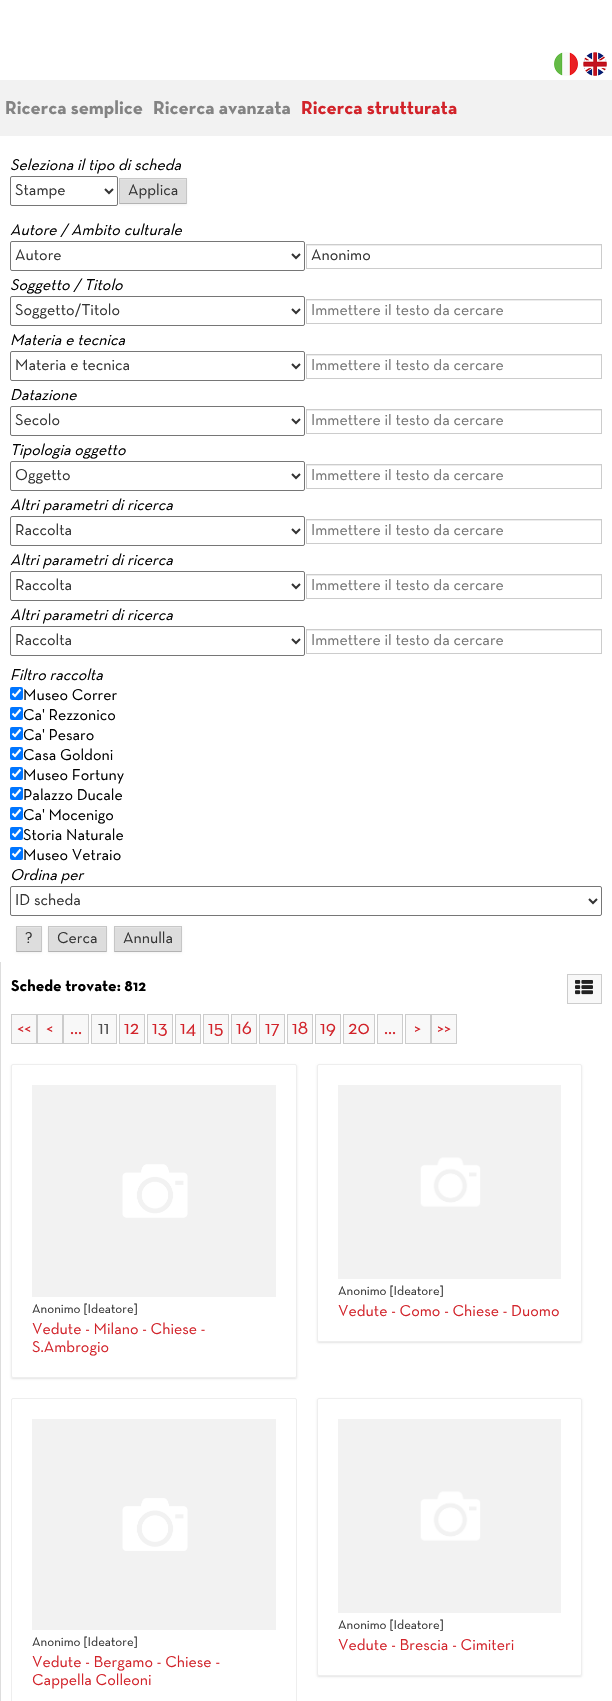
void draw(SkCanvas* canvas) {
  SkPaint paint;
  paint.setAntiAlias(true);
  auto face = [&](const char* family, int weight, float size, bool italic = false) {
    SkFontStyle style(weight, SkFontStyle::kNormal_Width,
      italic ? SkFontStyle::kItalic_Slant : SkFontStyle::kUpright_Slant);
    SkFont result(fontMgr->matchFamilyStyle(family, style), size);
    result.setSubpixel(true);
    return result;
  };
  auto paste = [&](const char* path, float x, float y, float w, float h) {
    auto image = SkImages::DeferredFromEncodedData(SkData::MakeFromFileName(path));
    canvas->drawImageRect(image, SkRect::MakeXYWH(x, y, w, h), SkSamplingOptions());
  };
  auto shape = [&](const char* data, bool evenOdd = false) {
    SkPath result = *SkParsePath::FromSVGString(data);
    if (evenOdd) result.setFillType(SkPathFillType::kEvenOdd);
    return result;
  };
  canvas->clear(0xffffffff);
  paste("img/1.png", 554, 52, 24, 24);
  paste("img/2.png", 583, 52, 24, 24);
  paint.setColor(0xfff2f2f2);
  canvas->drawRect(SkRect::MakeXYWH(0, 80, 612, 56), paint);
  paint.setStroke(true);
  paint.setStrokeWidth(1);
  paint.setColor(0xff767676);
  canvas->drawRoundRect(SkRect::MakeXYWH(10.5f, 176.5f, 107, 29), 1.5f, 1.5f, paint);
  paint.setStrokeWidth(2);
  paint.setColor(0xff333333);
  canvas->drawPath(shape("M105 189L109 193L113 189"), paint);
  paint.setStroke(false);
  paint.setColor(0x0d000000);
  paint.setMaskFilter(SkMaskFilter::MakeBlur(kNormal_SkBlurStyle, 1));
  canvas->drawRect(SkRect::MakeXYWH(119, 179, 68, 26), paint);
  paint.setMaskFilter(nullptr);
  paint.setColor(0xffdddddd);
  canvas->drawRect(SkRect::MakeXYWH(119, 178, 68, 26), paint);
  paint.setColor(0xffe4e4e4);
  canvas->drawRect(SkRect::MakeXYWH(120, 179, 66, 1), paint);
  paint.setColor(0xffc7c7c7);
  canvas->drawPath(shape("M119 178H187L186 179H120Z"), paint);
  paint.setColor(0x1a000000);
  canvas->drawPath(shape("M187 178V204L186 203V179Z"), paint);
  paint.setColor(0xffb3b3b3);
  canvas->drawPath(shape("M187 204H119L120 203H186Z"), paint);
  paint.setColor(0x1a000000);
  canvas->drawPath(shape("M119 204V178L120 179V203Z"), paint);
  paint.setStroke(true);
  paint.setStrokeWidth(1);
  paint.setColor(0xff767676);
  canvas->drawRoundRect(SkRect::MakeXYWH(10.5f, 241.5f, 294, 29), 1.5f, 1.5f, paint);
  paint.setStrokeWidth(2);
  paint.setColor(0xff333333);
  canvas->drawPath(shape("M292 254L296 258L300 254"), paint);
  paint.setStroke(false);
  paint.setColor(0xffececec);
  canvas->drawRect(SkRect::MakeXYWH(307, 245, 294, 1), paint);
  paint.setStroke(true);
  paint.setStrokeWidth(1);
  paint.setColor(0xffcccccc);
  canvas->drawRect(SkRect::MakeXYWH(306.5f, 244.5f, 295, 24), paint);
  paint.setColor(0xff767676);
  canvas->drawRoundRect(SkRect::MakeXYWH(10.5f, 296.5f, 294, 29), 1.5f, 1.5f, paint);
  paint.setStrokeWidth(2);
  paint.setColor(0xff333333);
  canvas->drawPath(shape("M292 309L296 313L300 309"), paint);
  paint.setStroke(false);
  paint.setColor(0xffececec);
  canvas->drawRect(SkRect::MakeXYWH(307, 300, 294, 1), paint);
  paint.setStroke(true);
  paint.setStrokeWidth(1);
  paint.setColor(0xffcccccc);
  canvas->drawRect(SkRect::MakeXYWH(306.5f, 299.5f, 295, 24), paint);
  paint.setColor(0xff767676);
  canvas->drawRoundRect(SkRect::MakeXYWH(10.5f, 351.5f, 294, 29), 1.5f, 1.5f, paint);
  paint.setStrokeWidth(2);
  paint.setColor(0xff333333);
  canvas->drawPath(shape("M292 364L296 368L300 364"), paint);
  paint.setStroke(false);
  paint.setColor(0xffececec);
  canvas->drawRect(SkRect::MakeXYWH(307, 355, 294, 1), paint);
  paint.setStroke(true);
  paint.setStrokeWidth(1);
  paint.setColor(0xffcccccc);
  canvas->drawRect(SkRect::MakeXYWH(306.5f, 354.5f, 295, 24), paint);
  paint.setColor(0xff767676);
  canvas->drawRoundRect(SkRect::MakeXYWH(10.5f, 406.5f, 294, 29), 1.5f, 1.5f, paint);
  paint.setStrokeWidth(2);
  paint.setColor(0xff333333);
  canvas->drawPath(shape("M292 419L296 423L300 419"), paint);
  paint.setStroke(false);
  paint.setColor(0xffececec);
  canvas->drawRect(SkRect::MakeXYWH(307, 410, 294, 1), paint);
  paint.setStroke(true);
  paint.setStrokeWidth(1);
  paint.setColor(0xffcccccc);
  canvas->drawRect(SkRect::MakeXYWH(306.5f, 409.5f, 295, 24), paint);
  paint.setColor(0xff767676);
  canvas->drawRoundRect(SkRect::MakeXYWH(10.5f, 461.5f, 294, 29), 1.5f, 1.5f, paint);
  paint.setStrokeWidth(2);
  paint.setColor(0xff333333);
  canvas->drawPath(shape("M292 474L296 478L300 474"), paint);
  paint.setStroke(false);
  paint.setColor(0xffececec);
  canvas->drawRect(SkRect::MakeXYWH(307, 465, 294, 1), paint);
  paint.setStroke(true);
  paint.setStrokeWidth(1);
  paint.setColor(0xffcccccc);
  canvas->drawRect(SkRect::MakeXYWH(306.5f, 464.5f, 295, 24), paint);
  paint.setColor(0xff767676);
  canvas->drawRoundRect(SkRect::MakeXYWH(10.5f, 516.5f, 294, 29), 1.5f, 1.5f, paint);
  paint.setStrokeWidth(2);
  paint.setColor(0xff333333);
  canvas->drawPath(shape("M292 529L296 533L300 529"), paint);
  paint.setStroke(false);
  paint.setColor(0xffececec);
  canvas->drawRect(SkRect::MakeXYWH(307, 520, 294, 1), paint);
  paint.setStroke(true);
  paint.setStrokeWidth(1);
  paint.setColor(0xffcccccc);
  canvas->drawRect(SkRect::MakeXYWH(306.5f, 519.5f, 295, 24), paint);
  paint.setColor(0xff767676);
  canvas->drawRoundRect(SkRect::MakeXYWH(10.5f, 571.5f, 294, 29), 1.5f, 1.5f, paint);
  paint.setStrokeWidth(2);
  paint.setColor(0xff333333);
  canvas->drawPath(shape("M292 584L296 588L300 584"), paint);
  paint.setStroke(false);
  paint.setColor(0xffececec);
  canvas->drawRect(SkRect::MakeXYWH(307, 575, 294, 1), paint);
  paint.setStroke(true);
  paint.setStrokeWidth(1);
  paint.setColor(0xffcccccc);
  canvas->drawRect(SkRect::MakeXYWH(306.5f, 574.5f, 295, 24), paint);
  paint.setColor(0xff767676);
  canvas->drawRoundRect(SkRect::MakeXYWH(10.5f, 626.5f, 294, 29), 1.5f, 1.5f, paint);
  paint.setStrokeWidth(2);
  paint.setColor(0xff333333);
  canvas->drawPath(shape("M292 639L296 643L300 639"), paint);
  paint.setStroke(false);
  paint.setColor(0xffececec);
  canvas->drawRect(SkRect::MakeXYWH(307, 630, 294, 1), paint);
  paint.setStroke(true);
  paint.setStrokeWidth(1);
  paint.setColor(0xffcccccc);
  canvas->drawRect(SkRect::MakeXYWH(306.5f, 629.5f, 295, 24), paint);
  paint.setStroke(false);
  paint.setColor(0xff0075ff);
  canvas->drawRoundRect(SkRect::MakeXYWH(10, 687, 13, 13), 2, 2, paint);
  paint.setStroke(true);
  paint.setStrokeWidth(2.1f);
  paint.setColor(0xffffffff);
  canvas->drawPath(shape("M12.5 693.5L15 696L20.5 689.5"), paint);
  paint.setStroke(false);
  paint.setColor(0xff0075ff);
  canvas->drawRoundRect(SkRect::MakeXYWH(10, 707, 13, 13), 2, 2, paint);
  paint.setStroke(true);
  paint.setColor(0xffffffff);
  canvas->drawPath(shape("M12.5 713.5L15 716L20.5 709.5"), paint);
  paint.setStroke(false);
  paint.setColor(0xff0075ff);
  canvas->drawRoundRect(SkRect::MakeXYWH(10, 727, 13, 13), 2, 2, paint);
  paint.setStroke(true);
  paint.setColor(0xffffffff);
  canvas->drawPath(shape("M12.5 733.5L15 736L20.5 729.5"), paint);
  paint.setStroke(false);
  paint.setColor(0xff0075ff);
  canvas->drawRoundRect(SkRect::MakeXYWH(10, 747, 13, 13), 2, 2, paint);
  paint.setStroke(true);
  paint.setColor(0xffffffff);
  canvas->drawPath(shape("M12.5 753.5L15 756L20.5 749.5"), paint);
  paint.setStroke(false);
  paint.setColor(0xff0075ff);
  canvas->drawRoundRect(SkRect::MakeXYWH(10, 767, 13, 13), 2, 2, paint);
  paint.setStroke(true);
  paint.setColor(0xffffffff);
  canvas->drawPath(shape("M12.5 773.5L15 776L20.5 769.5"), paint);
  paint.setStroke(false);
  paint.setColor(0xff0075ff);
  canvas->drawRoundRect(SkRect::MakeXYWH(10, 787, 13, 13), 2, 2, paint);
  paint.setStroke(true);
  paint.setColor(0xffffffff);
  canvas->drawPath(shape("M12.5 793.5L15 796L20.5 789.5"), paint);
  paint.setStroke(false);
  paint.setColor(0xff0075ff);
  canvas->drawRoundRect(SkRect::MakeXYWH(10, 807, 13, 13), 2, 2, paint);
  paint.setStroke(true);
  paint.setColor(0xffffffff);
  canvas->drawPath(shape("M12.5 813.5L15 816L20.5 809.5"), paint);
  paint.setStroke(false);
  paint.setColor(0xff0075ff);
  canvas->drawRoundRect(SkRect::MakeXYWH(10, 827, 13, 13), 2, 2, paint);
  paint.setStroke(true);
  paint.setColor(0xffffffff);
  canvas->drawPath(shape("M12.5 833.5L15 836L20.5 829.5"), paint);
  paint.setStroke(false);
  paint.setColor(0xff0075ff);
  canvas->drawRoundRect(SkRect::MakeXYWH(10, 847, 13, 13), 2, 2, paint);
  paint.setStroke(true);
  paint.setColor(0xffffffff);
  canvas->drawPath(shape("M12.5 853.5L15 856L20.5 849.5"), paint);
  paint.setStrokeWidth(1);
  paint.setColor(0xff767676);
  canvas->drawRoundRect(SkRect::MakeXYWH(10.5f, 886.5f, 591, 29), 1.5f, 1.5f, paint);
  paint.setStrokeWidth(2);
  paint.setColor(0xff333333);
  canvas->drawPath(shape("M589 899L593 903L597 899"), paint);
  paint.setStroke(false);
  paint.setColor(0x0d000000);
  paint.setMaskFilter(SkMaskFilter::MakeBlur(kNormal_SkBlurStyle, 1));
  canvas->drawRect(SkRect::MakeXYWH(16, 927, 26, 26), paint);
  paint.setMaskFilter(nullptr);
  paint.setColor(0xffdddddd);
  canvas->drawRect(SkRect::MakeXYWH(16, 926, 26, 26), paint);
  paint.setColor(0xffe4e4e4);
  canvas->drawRect(SkRect::MakeXYWH(17, 927, 24, 1), paint);
  paint.setColor(0xffc7c7c7);
  canvas->drawPath(shape("M16 926H42L41 927H17Z"), paint);
  paint.setColor(0x1a000000);
  canvas->drawPath(shape("M42 926V952L41 951V927Z"), paint);
  paint.setColor(0xffb3b3b3);
  canvas->drawPath(shape("M42 952H16L17 951H41Z"), paint);
  paint.setColor(0x1a000000);
  canvas->drawPath(shape("M16 952V926L17 927V951Z"), paint);
  paint.setColor(0x0d000000);
  paint.setMaskFilter(SkMaskFilter::MakeBlur(kNormal_SkBlurStyle, 1));
  canvas->drawRect(SkRect::MakeXYWH(48, 927, 59, 26), paint);
  paint.setMaskFilter(nullptr);
  paint.setColor(0xffdddddd);
  canvas->drawRect(SkRect::MakeXYWH(48, 926, 59, 26), paint);
  paint.setColor(0xffe4e4e4);
  canvas->drawRect(SkRect::MakeXYWH(49, 927, 57, 1), paint);
  paint.setColor(0xffc7c7c7);
  canvas->drawPath(shape("M48 926H107L106 927H49Z"), paint);
  paint.setColor(0x1a000000);
  canvas->drawPath(shape("M107 926V952L106 951V927Z"), paint);
  paint.setColor(0xffb3b3b3);
  canvas->drawPath(shape("M107 952H48L49 951H106Z"), paint);
  paint.setColor(0x1a000000);
  canvas->drawPath(shape("M48 952V926L49 927V951Z"), paint);
  paint.setColor(0x0d000000);
  paint.setMaskFilter(SkMaskFilter::MakeBlur(kNormal_SkBlurStyle, 1));
  canvas->drawRect(SkRect::MakeXYWH(114, 927, 68, 26), paint);
  paint.setMaskFilter(nullptr);
  paint.setColor(0xffdddddd);
  canvas->drawRect(SkRect::MakeXYWH(114, 926, 68, 26), paint);
  paint.setColor(0xffe4e4e4);
  canvas->drawRect(SkRect::MakeXYWH(115, 927, 66, 1), paint);
  paint.setColor(0xffc7c7c7);
  canvas->drawPath(shape("M114 926H182L181 927H115Z"), paint);
  paint.setColor(0x1a000000);
  canvas->drawPath(shape("M182 926V952L181 951V927Z"), paint);
  paint.setColor(0xffb3b3b3);
  canvas->drawPath(shape("M182 952H114L115 951H181Z"), paint);
  paint.setColor(0x1a000000);
  canvas->drawPath(shape("M114 952V926L115 927V951Z"), paint);
  paint.setColor(0xffdddddd);
  canvas->drawRect(SkRect::MakeXYWH(0, 962, 1, 739), paint);
  paint.setColor(0xfff8f8f8);
  canvas->drawRect(SkRect::MakeXYWH(567.5f, 974.5f, 34, 29), paint);
  paint.setStroke(true);
  paint.setStrokeWidth(1);
  paint.setColor(0xffcccccc);
  canvas->drawRect(SkRect::MakeXYWH(567.5f, 974.5f, 34, 29), paint);
  paste("img/3.png", 575, 980, 18, 15);
  paint.setStroke(false);
  paint.setColor(0xfff8f8f8);
  canvas->drawRect(SkRect::MakeXYWH(11.5f, 1014.5f, 25, 29), paint);
  paint.setStroke(true);
  paint.setColor(0xffcccccc);
  canvas->drawRect(SkRect::MakeXYWH(11.5f, 1014.5f, 25, 29), paint);
  paint.setStroke(false);
  paint.setColor(0xfff8f8f8);
  canvas->drawRect(SkRect::MakeXYWH(37.5f, 1014.5f, 25, 29), paint);
  paint.setStroke(true);
  paint.setColor(0xffcccccc);
  canvas->drawRect(SkRect::MakeXYWH(37.5f, 1014.5f, 25, 29), paint);
  paint.setStroke(false);
  paint.setColor(0xfff8f8f8);
  canvas->drawRect(SkRect::MakeXYWH(63.5f, 1014.5f, 25, 29), paint);
  paint.setStroke(true);
  paint.setColor(0xffcccccc);
  canvas->drawRect(SkRect::MakeXYWH(63.5f, 1014.5f, 25, 29), paint);
  paint.setStroke(false);
  paint.setColor(0xfff8f8f8);
  canvas->drawRect(SkRect::MakeXYWH(91.5f, 1014.5f, 25, 29), paint);
  paint.setStroke(true);
  paint.setColor(0xffcccccc);
  canvas->drawRect(SkRect::MakeXYWH(91.5f, 1014.5f, 25, 29), paint);
  paint.setStroke(false);
  paint.setColor(0xfff8f8f8);
  canvas->drawRect(SkRect::MakeXYWH(119.5f, 1014.5f, 25, 29), paint);
  paint.setStroke(true);
  paint.setColor(0xffcccccc);
  canvas->drawRect(SkRect::MakeXYWH(119.5f, 1014.5f, 25, 29), paint);
  paint.setStroke(false);
  paint.setColor(0xfff8f8f8);
  canvas->drawRect(SkRect::MakeXYWH(147.5f, 1014.5f, 25, 29), paint);
  paint.setStroke(true);
  paint.setColor(0xffcccccc);
  canvas->drawRect(SkRect::MakeXYWH(147.5f, 1014.5f, 25, 29), paint);
  paint.setStroke(false);
  paint.setColor(0xfff8f8f8);
  canvas->drawRect(SkRect::MakeXYWH(175.5f, 1014.5f, 25, 29), paint);
  paint.setStroke(true);
  paint.setColor(0xffcccccc);
  canvas->drawRect(SkRect::MakeXYWH(175.5f, 1014.5f, 25, 29), paint);
  paint.setStroke(false);
  paint.setColor(0xfff8f8f8);
  canvas->drawRect(SkRect::MakeXYWH(203.5f, 1014.5f, 25, 29), paint);
  paint.setStroke(true);
  paint.setColor(0xffcccccc);
  canvas->drawRect(SkRect::MakeXYWH(203.5f, 1014.5f, 25, 29), paint);
  paint.setStroke(false);
  paint.setColor(0xfff8f8f8);
  canvas->drawRect(SkRect::MakeXYWH(231.5f, 1014.5f, 25, 29), paint);
  paint.setStroke(true);
  paint.setColor(0xffcccccc);
  canvas->drawRect(SkRect::MakeXYWH(231.5f, 1014.5f, 25, 29), paint);
  paint.setStroke(false);
  paint.setColor(0xfff8f8f8);
  canvas->drawRect(SkRect::MakeXYWH(259.5f, 1014.5f, 25, 29), paint);
  paint.setStroke(true);
  paint.setColor(0xffcccccc);
  canvas->drawRect(SkRect::MakeXYWH(259.5f, 1014.5f, 25, 29), paint);
  paint.setStroke(false);
  paint.setColor(0xfff8f8f8);
  canvas->drawRect(SkRect::MakeXYWH(287.5f, 1014.5f, 25, 29), paint);
  paint.setStroke(true);
  paint.setColor(0xffcccccc);
  canvas->drawRect(SkRect::MakeXYWH(287.5f, 1014.5f, 25, 29), paint);
  paint.setStroke(false);
  paint.setColor(0xfff8f8f8);
  canvas->drawRect(SkRect::MakeXYWH(315.5f, 1014.5f, 25, 29), paint);
  paint.setStroke(true);
  paint.setColor(0xffcccccc);
  canvas->drawRect(SkRect::MakeXYWH(315.5f, 1014.5f, 25, 29), paint);
  paint.setStroke(false);
  paint.setColor(0xfff8f8f8);
  canvas->drawRect(SkRect::MakeXYWH(343.5f, 1014.5f, 31, 29), paint);
  paint.setStroke(true);
  paint.setColor(0xffcccccc);
  canvas->drawRect(SkRect::MakeXYWH(343.5f, 1014.5f, 31, 29), paint);
  paint.setStroke(false);
  paint.setColor(0xfff8f8f8);
  canvas->drawRect(SkRect::MakeXYWH(377.5f, 1014.5f, 25, 29), paint);
  paint.setStroke(true);
  paint.setColor(0xffcccccc);
  canvas->drawRect(SkRect::MakeXYWH(377.5f, 1014.5f, 25, 29), paint);
  paint.setStroke(false);
  paint.setColor(0xfff8f8f8);
  canvas->drawRect(SkRect::MakeXYWH(405.5f, 1014.5f, 25, 29), paint);
  paint.setStroke(true);
  paint.setColor(0xffcccccc);
  canvas->drawRect(SkRect::MakeXYWH(405.5f, 1014.5f, 25, 29), paint);
  paint.setStroke(false);
  paint.setColor(0xfff8f8f8);
  canvas->drawRect(SkRect::MakeXYWH(431.5f, 1014.5f, 25, 29), paint);
  paint.setStroke(true);
  paint.setColor(0xffcccccc);
  canvas->drawRect(SkRect::MakeXYWH(431.5f, 1014.5f, 25, 29), paint);
  canvas->save();
  canvas->clipPath(shape("M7 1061H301V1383H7ZM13 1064H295C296 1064 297 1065 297 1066V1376C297 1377 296 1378 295 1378H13C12 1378 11 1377 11 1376V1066C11 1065 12 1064 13 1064Z", true), true);
  paint.setStroke(false);
  paint.setColor(0x1a000000);
  paint.setMaskFilter(SkMaskFilter::MakeBlur(kNormal_SkBlurStyle, 1));
  canvas->drawRoundRect(SkRect::MakeXYWH(11, 1065, 286, 314), 2, 2, paint);
  paint.setMaskFilter(nullptr);
  canvas->restore();
  paint.setStroke(true);
  paint.setColor(0xffeeeeee);
  canvas->drawRoundRect(SkRect::MakeXYWH(11.5f, 1064.5f, 285, 313), 1.5f, 1.5f, paint);
  paste("img/4.png", 32, 1085, 244, 212);
  canvas->save();
  canvas->clipPath(shape("M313 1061H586V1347H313ZM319 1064H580C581 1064 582 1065 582 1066V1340C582 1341 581 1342 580 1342H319C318 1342 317 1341 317 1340V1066C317 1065 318 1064 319 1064Z", true), true);
  paint.setStroke(false);
  paint.setColor(0x1a000000);
  paint.setMaskFilter(SkMaskFilter::MakeBlur(kNormal_SkBlurStyle, 1));
  canvas->drawRoundRect(SkRect::MakeXYWH(317, 1065, 265, 278), 2, 2, paint);
  paint.setMaskFilter(nullptr);
  canvas->restore();
  paint.setStroke(true);
  paint.setColor(0xffeeeeee);
  canvas->drawRoundRect(SkRect::MakeXYWH(317.5f, 1064.5f, 264, 277), 1.5f, 1.5f, paint);
  paste("img/5.png", 338, 1085, 223, 194);
  canvas->drawRoundRect(SkRect::MakeXYWH(11.5f, 1398.5f, 285, 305), 1.5f, 1.5f, paint);
  paste("img/6.png", 32, 1419, 244, 211);
  canvas->save();
  canvas->clipPath(shape("M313 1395H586V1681H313ZM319 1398H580C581 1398 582 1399 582 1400V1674C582 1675 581 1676 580 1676H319C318 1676 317 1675 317 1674V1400C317 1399 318 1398 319 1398Z", true), true);
  paint.setStroke(false);
  paint.setColor(0x1a000000);
  paint.setMaskFilter(SkMaskFilter::MakeBlur(kNormal_SkBlurStyle, 1));
  canvas->drawRoundRect(SkRect::MakeXYWH(317, 1399, 265, 278), 2, 2, paint);
  paint.setMaskFilter(nullptr);
  canvas->restore();
  paint.setStroke(true);
  paint.setColor(0xffeeeeee);
  canvas->drawRoundRect(SkRect::MakeXYWH(317.5f, 1398.5f, 264, 277), 1.5f, 1.5f, paint);
  paste("img/5.png", 338, 1419, 223, 194);
  auto f0 = face("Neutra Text", 700, 19);
  paint.setStroke(false);
  paint.setColor(0xff838383);
  canvas->drawString("Ricerca semplice", 5, 114, f0, paint);
  canvas->drawString("Ricerca avanzata", 153, 114, f0, paint);
  paint.setColor(0xffd2232a);
  canvas->drawString("Ricerca strutturata", 301, 114, f0, paint);
  auto f1 = face("Neutra Text", 400, 16, true);
  paint.setColor(0xff000000);
  canvas->drawString("Seleziona il tipo di scheda", 10, 170, f1, paint);
  auto f2 = face("Neutra Text", 400, 16);
  paint.setColor(0xff333333);
  canvas->drawString("Stampe", 15, 195, f2, paint);
  canvas->drawString("Applica", 128, 195, f2, paint);
  paint.setColor(0xff000000);
  canvas->drawString("Autore / Ambito culturale", 10, 235, f1, paint);
  paint.setColor(0xff333333);
  canvas->drawString("Autore", 15, 260, f2, paint);
  canvas->drawString("Anonimo", 311, 260, f2, paint);
  paint.setColor(0xff000000);
  canvas->drawString("Soggetto / Titolo", 10, 290, f1, paint);
  paint.setColor(0xff333333);
  canvas->drawString("Soggetto/Titolo", 15, 315, f2, paint);
  canvas->save();
  canvas->clipRect(SkRect::MakeXYWH(311, 304, 286, 15));
  paint.setColor(0xff757575);
  canvas->drawString("Immettere il testo da cercare", 311, 315, f2, paint);
  canvas->restore();
  paint.setColor(0xff000000);
  canvas->drawString("Materia e tecnica", 10, 345, f1, paint);
  paint.setColor(0xff333333);
  canvas->drawString("Materia e tecnica", 15, 370, f2, paint);
  canvas->save();
  canvas->clipRect(SkRect::MakeXYWH(311, 359, 286, 15));
  paint.setColor(0xff757575);
  canvas->drawString("Immettere il testo da cercare", 311, 370, f2, paint);
  canvas->restore();
  paint.setColor(0xff000000);
  canvas->drawString("Datazione", 10, 400, f1, paint);
  paint.setColor(0xff333333);
  canvas->drawString("Secolo", 15, 425, f2, paint);
  canvas->save();
  canvas->clipRect(SkRect::MakeXYWH(311, 414, 286, 15));
  paint.setColor(0xff757575);
  canvas->drawString("Immettere il testo da cercare", 311, 425, f2, paint);
  canvas->restore();
  paint.setColor(0xff000000);
  canvas->drawString("Tipologia oggetto", 10, 455, f1, paint);
  paint.setColor(0xff333333);
  canvas->drawString("Oggetto", 15, 480, f2, paint);
  canvas->save();
  canvas->clipRect(SkRect::MakeXYWH(311, 469, 286, 15));
  paint.setColor(0xff757575);
  canvas->drawString("Immettere il testo da cercare", 311, 480, f2, paint);
  canvas->restore();
  paint.setColor(0xff000000);
  canvas->drawString("Altri parametri di ricerca", 10, 510, f1, paint);
  paint.setColor(0xff333333);
  canvas->drawString("Raccolta", 15, 535, f2, paint);
  canvas->save();
  canvas->clipRect(SkRect::MakeXYWH(311, 524, 286, 15));
  paint.setColor(0xff757575);
  canvas->drawString("Immettere il testo da cercare", 311, 535, f2, paint);
  canvas->restore();
  paint.setColor(0xff000000);
  canvas->drawString("Altri parametri di ricerca", 10, 565, f1, paint);
  paint.setColor(0xff333333);
  canvas->drawString("Raccolta", 15, 590, f2, paint);
  canvas->save();
  canvas->clipRect(SkRect::MakeXYWH(311, 579, 286, 15));
  paint.setColor(0xff757575);
  canvas->drawString("Immettere il testo da cercare", 311, 590, f2, paint);
  canvas->restore();
  paint.setColor(0xff000000);
  canvas->drawString("Altri parametri di ricerca", 10, 620, f1, paint);
  paint.setColor(0xff333333);
  canvas->drawString("Raccolta", 15, 645, f2, paint);
  canvas->save();
  canvas->clipRect(SkRect::MakeXYWH(311, 634, 286, 15));
  paint.setColor(0xff757575);
  canvas->drawString("Immettere il testo da cercare", 311, 645, f2, paint);
  canvas->restore();
  paint.setColor(0xff000000);
  canvas->drawString("Filtro raccolta", 10, 680, f1, paint);
  {
    const struct { const char* s; float x, y; } items[] = {
      {"Museo Correr", 23, 700},
      {"Ca' Rezzonico", 23, 720},
      {"Ca' Pesaro", 23, 740},
      {"Casa Goldoni", 23, 760},
      {"Museo Fortuny", 23, 780},
      {"Palazzo Ducale", 23, 800},
      {"Ca' Mocenigo", 23, 820},
      {"Storia Naturale", 23, 840},
      {"Museo Vetraio", 23, 860},
    };
    for (auto [s, x, y] : items) {
      canvas->drawString(s, x, y, f2, paint);
    }
  }
  canvas->drawString("Ordina per", 10, 880, f1, paint);
  paint.setColor(0xff333333);
  {
    const struct { const char* s; float x, y; } items[] = {
      {"ID scheda", 15, 905},
      {"?", 25, 943},
      {"Cerca", 57, 943},
      {"Annulla", 123, 943},
    };
    for (auto [s, x, y] : items) {
      canvas->drawString(s, x, y, f2, paint);
    }
  }
  auto f3 = face("Neutra Text", 700, 16);
  paint.setColor(0xff000000);
  canvas->drawString("Schede trovate: 812", 11, 991, f3, paint);
  auto f4 = face("Neutra Text", 400, 20);
  paint.setColor(0xffd2232a);
  {
    const struct { const char* s; float x, y; } items[] = {
      {"<<", 17, 1034},
      {"<", 46, 1034},
      {"...", 70, 1034},
    };
    for (auto [s, x, y] : items) {
      canvas->drawString(s, x, y, f4, paint);
    }
  }
  paint.setColor(0xff4f4f4f);
  canvas->drawString("11", 98, 1034, f4, paint);
  paint.setColor(0xffd2232a);
  {
    const struct { const char* s; float x, y; } items[] = {
      {"12", 124, 1034},
      {"13", 152, 1034},
      {"14", 180, 1034},
      {"15", 208, 1034},
      {"16", 236, 1034},
      {"17", 265, 1034},
      {"18", 292, 1034},
      {"19", 320, 1034},
      {"20", 348, 1034},
      {"...", 384, 1034},
      {">", 414, 1034},
      {">>", 437, 1034},
    };
    for (auto [s, x, y] : items) {
      canvas->drawString(s, x, y, f4, paint);
    }
  }
  auto f5 = face("Neutra Text", 400, 13);
  paint.setColor(0xff333333);
  canvas->drawString("Anonimo [Ideatore]", 32, 1313, f5, paint);
  paint.setColor(0xffd2232a);
  canvas->drawString("Vedute - Milano - Chiese -", 32, 1334, f2, paint);
  canvas->drawString("S.Ambrogio", 32, 1352, f2, paint);
  paint.setColor(0xff333333);
  canvas->drawString("Anonimo [Ideatore]", 338, 1295, f5, paint);
  paint.setColor(0xffd2232a);
  canvas->drawString("Vedute - Como - Chiese - Duomo", 338, 1316, f2, paint);
  paint.setColor(0xff333333);
  canvas->drawString("Anonimo [Ideatore]", 32, 1646, f5, paint);
  paint.setColor(0xffd2232a);
  canvas->drawString("Vedute - Bergamo - Chiese -", 32, 1667, f2, paint);
  canvas->drawString("Cappella Colleoni", 32, 1685, f2, paint);
  paint.setColor(0xff333333);
  canvas->drawString("Anonimo [Ideatore]", 338, 1629, f5, paint);
  paint.setColor(0xffd2232a);
  canvas->drawString("Vedute - Brescia - Cimiteri", 338, 1650, f2, paint);
}
